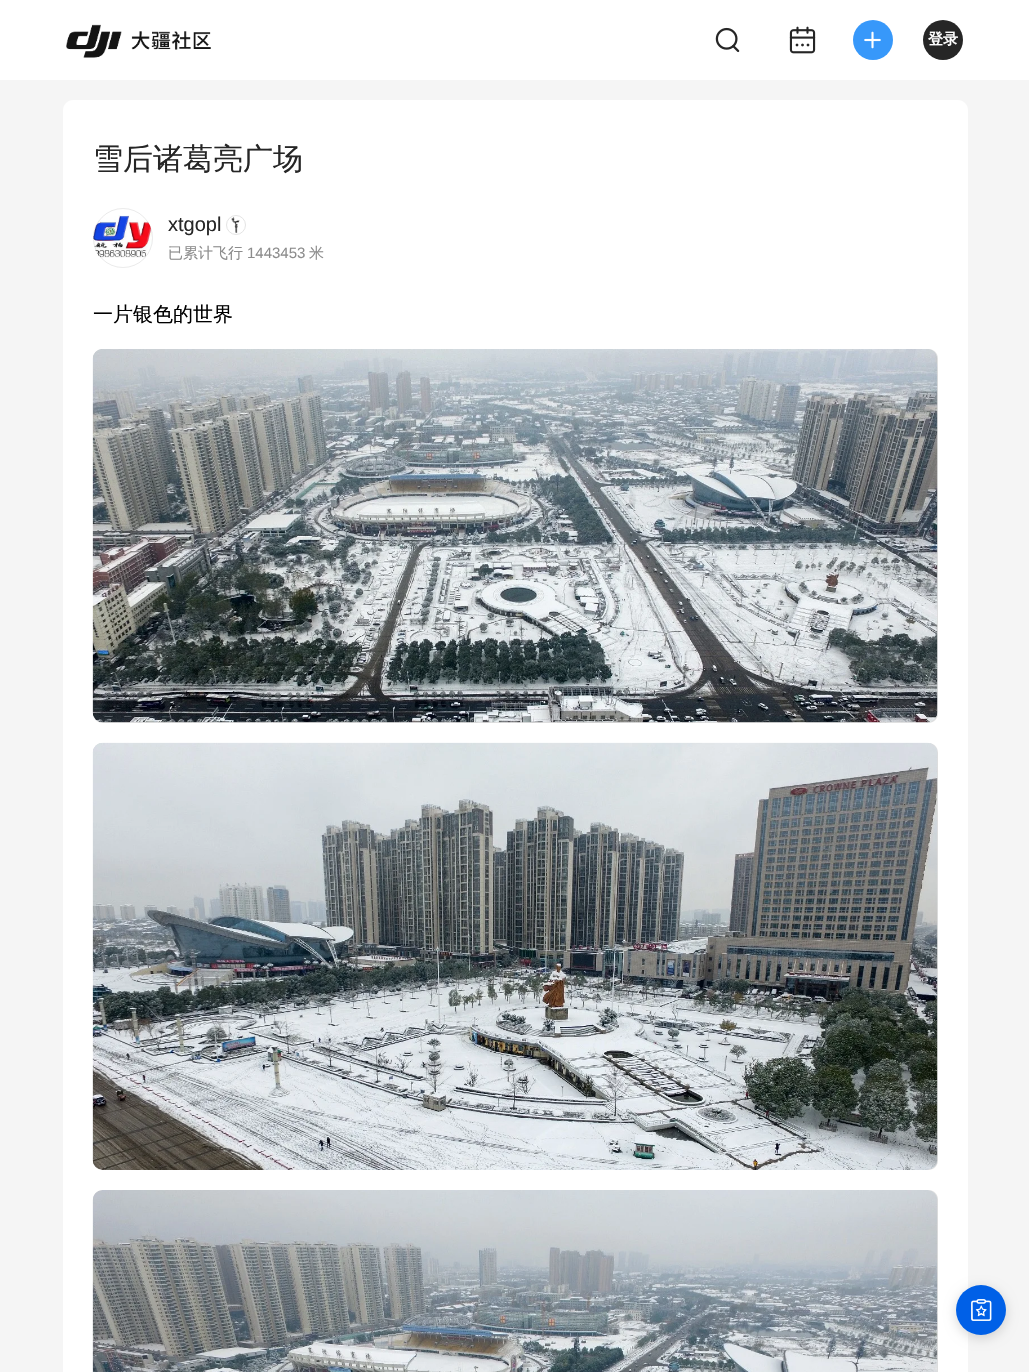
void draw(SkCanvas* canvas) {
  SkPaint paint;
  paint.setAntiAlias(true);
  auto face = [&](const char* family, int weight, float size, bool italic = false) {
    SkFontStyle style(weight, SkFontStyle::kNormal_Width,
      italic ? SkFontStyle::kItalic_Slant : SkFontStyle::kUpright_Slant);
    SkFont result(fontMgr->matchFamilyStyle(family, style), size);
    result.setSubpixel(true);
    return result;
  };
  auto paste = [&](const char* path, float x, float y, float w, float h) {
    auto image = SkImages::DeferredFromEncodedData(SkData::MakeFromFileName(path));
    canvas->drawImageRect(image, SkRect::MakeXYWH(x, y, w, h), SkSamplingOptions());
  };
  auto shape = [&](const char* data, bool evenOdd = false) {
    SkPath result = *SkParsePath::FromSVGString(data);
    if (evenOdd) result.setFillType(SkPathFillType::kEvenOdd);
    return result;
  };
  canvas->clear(0xfff5f5f5);
  paint.setColor(0xffffffff);
  canvas->drawRect(SkRect::MakeXYWH(0, 0, 1029, 80), paint);
  paste("img/1.png", 66, 24, 145, 34);
  paste("img/2.png", 715, 27, 25, 26);
  paste("img/3.png", 789, 26, 27, 28);
  paint.setColor(0xff3798fa);
  canvas->drawCircle(873, 40, 20, paint);
  paste("img/4.png", 864, 31, 17, 18);
  paint.setColor(0xff262626);
  canvas->drawCircle(943, 40, 20, paint);
  paint.setColor(0xffffffff);
  canvas->drawPath(shape("M73 100H958C963.5 100 968 104.5 968 110V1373H63V110C63 104.5 67.5 100 73 100Z"), paint);
  paste("img/5.png", 93, 215, 59, 43);
  paint.setStroke(true);
  paint.setStrokeWidth(1);
  paint.setColor(0x14000000);
  canvas->drawCircle(123, 238, 29.5f, paint);
  paint.setColor(0xffe4e4e4);
  canvas->drawCircle(236, 225, 9.5f, paint);
  paste("img/6.png", 231, 217, 9, 16);
  paint.setStroke(false);
  paint.setColor(0xfff0f0f0);
  canvas->drawRoundRect(SkRect::MakeXYWH(93, 349, 845, 374), 10, 10, paint);
  paint.setColor(0x14000000);
  canvas->drawPath(shape("M103 349H928C934 349 938 353 938 359V713C938 719 934 723 928 723H103C97 723 93 719 93 713V359C93 353 97 349 103 349Z"), paint);
  paste("img/7.png", 92, 349, 846, 374);
  paint.setColor(0xfff0f0f0);
  canvas->drawRoundRect(SkRect::MakeXYWH(93, 743, 845, 427), 10, 10, paint);
  paint.setColor(0x14000000);
  canvas->drawPath(shape("M103 743H928C934 743 938 747 938 753V1160C938 1166 934 1170 928 1170H103C97 1170 93 1166 93 1160V753C93 747 97 743 103 743Z"), paint);
  paste("img/8.png", 92, 742, 846, 428);
  paint.setColor(0xfff0f0f0);
  canvas->drawPath(shape("M103 1190H928C933.5 1190 938 1194.5 938 1200V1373H93V1200C93 1194.5 97.5 1190 103 1190Z"), paint);
  paint.setColor(0x14000000);
  canvas->drawPath(shape("M103 1190H928C934 1190 938 1194 938 1200V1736C938 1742 934 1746 928 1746H103C97 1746 93 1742 93 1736V1200C93 1194 97 1190 103 1190Z"), paint);
  paste("img/9.png", 92, 1190, 846, 182);
  paint.setColor(0x29000000);
  paint.setMaskFilter(SkMaskFilter::MakeBlur(kNormal_SkBlurStyle, 6));
  canvas->drawRoundRect(SkRect::MakeXYWH(956, 1288, 50, 50), 25, 25, paint);
  paint.setMaskFilter(nullptr);
  paint.setColor(0xff0060e7);
  canvas->drawCircle(981, 1310, 25, paint);
  paste("img/10.png", 971, 1299, 21, 22);
  auto f0 = face("WenQuanYi Zen Hei", 700, 15);
  paint.setColor(0xffffffff);
  canvas->drawString("登录", 928, 44, f0, paint);
  auto f1 = face("WenQuanYi Zen Hei", 500, 30);
  paint.setColor(0xff262626);
  canvas->drawString("雪后诸葛亮广场", 93, 169, f1, paint);
  auto f2 = face("Liberation Sans", 400, 20);
  canvas->drawString("xtgopl", 168, 231, f2, paint);
  auto f3 = face("WenQuanYi Zen Hei", 500, 15);
  paint.setColor(0xff8c8c8c);
  canvas->drawString("已累计飞行", 168, 258, f3, paint);
  auto f4 = face("Liberation Sans", 400, 15);
  canvas->drawString("1443453", 247, 258, f4, paint);
  canvas->drawString("米", 309, 258, f3, paint);
  auto f5 = face("WenQuanYi Zen Hei", 500, 20);
  paint.setColor(0xff000000);
  canvas->drawString("一片银色的世界", 93, 321, f5, paint);
}
